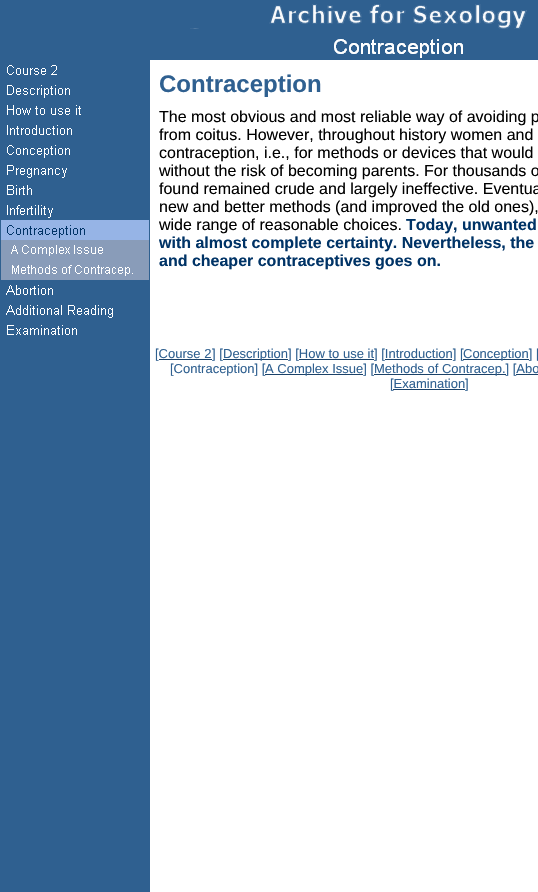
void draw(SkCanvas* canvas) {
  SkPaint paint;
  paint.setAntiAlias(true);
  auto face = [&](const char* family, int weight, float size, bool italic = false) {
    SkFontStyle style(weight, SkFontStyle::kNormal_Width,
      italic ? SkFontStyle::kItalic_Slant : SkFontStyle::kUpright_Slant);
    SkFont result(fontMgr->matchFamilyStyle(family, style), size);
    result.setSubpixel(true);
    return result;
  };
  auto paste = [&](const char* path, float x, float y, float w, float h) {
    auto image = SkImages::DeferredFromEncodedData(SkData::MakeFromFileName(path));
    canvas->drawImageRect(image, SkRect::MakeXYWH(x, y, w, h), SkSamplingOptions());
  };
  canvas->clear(0xffffffff);
  paint.setColor(0xff2f6090);
  canvas->drawRect(SkRect::MakeXYWH(0, 0, 150, 892), paint);
  paste("img/1.png", 7, 65, 50, 10);
  paste("img/2.png", 7, 85, 63, 13);
  paste("img/3.png", 7, 105, 74, 10);
  paste("img/4.png", 7, 125, 65, 10);
  paste("img/5.png", 7, 145, 63, 13);
  paste("img/6.png", 7, 165, 60, 13);
  paste("img/7.png", 7, 185, 25, 10);
  paste("img/8.png", 7, 205, 46, 13);
  paste("img/9.png", 1, 220, 148, 20);
  paste("img/10.png", 1, 240, 148, 20);
  paste("img/11.png", 1, 260, 148, 20);
  paste("img/12.png", 6, 285, 47, 10);
  paste("img/13.png", 6, 305, 107, 13);
  paste("img/14.png", 7, 325, 70, 10);
  canvas->drawRect(SkRect::MakeXYWH(150, 0, 388, 60), paint);
  paste("img/15.png", 190, 4, 337, 54);
  {
    const struct { float x, y, w, h; SkColor color; } items[] = {
      {223, 359, 65, 1, 0xff1b4269},
      {265, 374, 98, 1, 0xff1b4269},
      {374, 374, 132, 1, 0xff1b4269},
    };
    for (auto [x, y, w, h, color] : items) {
      paint.setColor(color);
      canvas->drawRect(SkRect::MakeXYWH(x, y, w, h), paint);
    }
  }
  auto f0 = face("Liberation Sans", 700, 24);
  paint.setColor(0xff2f6090);
  canvas->drawString("Contraception", 159, 92, f0, paint);
  auto f1 = face("Liberation Sans", 400, 16);
  paint.setColor(0xff000000);
  {
    const struct { const char* s; float x, y; } items[] = {
      {"The most obvious and most reliable way of avoiding p", 159, 122},
      {"from coitus. However, throughout history women and", 159, 140},
      {"contraception, i.e., for methods or devices that would", 159, 158},
      {"without the risk of becoming parents. For thousands o", 159, 176},
      {"found remained crude and largely ineffective. Eventua", 159, 194},
      {"new and better methods (and improved the old ones),", 159, 212},
      {"wide range of reasonable choices.", 159, 230},
    };
    for (auto [s, x, y] : items) {
      canvas->drawString(s, x, y, f1, paint);
    }
  }
  auto f2 = face("Liberation Sans", 700, 16);
  paint.setColor(0xff003366);
  {
    const struct { const char* s; float x, y; } items[] = {
      {"Today, unwanted", 406, 230},
      {"with almost complete certainty. Nevertheless, the", 159, 248},
      {"and cheaper contraceptives goes on.", 159, 266},
    };
    for (auto [s, x, y] : items) {
      canvas->drawString(s, x, y, f2, paint);
    }
  }
  auto f3 = face("Liberation Sans", 400, 13);
  paint.setColor(0xff2f6090);
  canvas->drawString("[Course 2", 155, 358, f3, paint);
  canvas->drawString("Description] [How to use it", 223, 358, f3, paint);
  paint.setColor(0xff1b4269);
  canvas->drawRect(SkRect::MakeXYWH(159, 359, 53, 1), paint);
  paint.setColor(0xff2f6090);
  canvas->drawString("] [", 212, 358, f3, paint);
  paint.setColor(0xff1b4269);
  canvas->drawRect(SkRect::MakeXYWH(299, 359, 75, 1), paint);
  paint.setColor(0xff2f6090);
  canvas->drawString("] [Introduction] [", 374, 358, f3, paint);
  paint.setColor(0xff1b4269);
  canvas->drawRect(SkRect::MakeXYWH(463, 359, 66, 1), paint);
  paint.setColor(0xff2f6090);
  canvas->drawString("Conception] [", 463, 358, f3, paint);
  paint.setColor(0xff1b4269);
  canvas->drawRect(SkRect::MakeXYWH(385, 359, 67, 1), paint);
  paint.setColor(0xff2f6090);
  {
    const struct { const char* s; float x, y; } items[] = {
      {"[Contraception] [", 170, 373},
      {"A Complex Issue] [", 265, 373},
      {"Methods of Contracep.] [Abo", 374, 373},
    };
    for (auto [s, x, y] : items) {
      canvas->drawString(s, x, y, f3, paint);
    }
  }
  paint.setColor(0xff1b4269);
  canvas->drawRect(SkRect::MakeXYWH(516, 374, 22, 1), paint);
  paint.setColor(0xff2f6090);
  canvas->drawString("[Examination", 390, 388, f3, paint);
  paint.setColor(0xff1b4269);
  canvas->drawRect(SkRect::MakeXYWH(393, 389, 72, 1), paint);
  paint.setColor(0xff2f6090);
  canvas->drawString("]", 465, 388, f3, paint);
}
